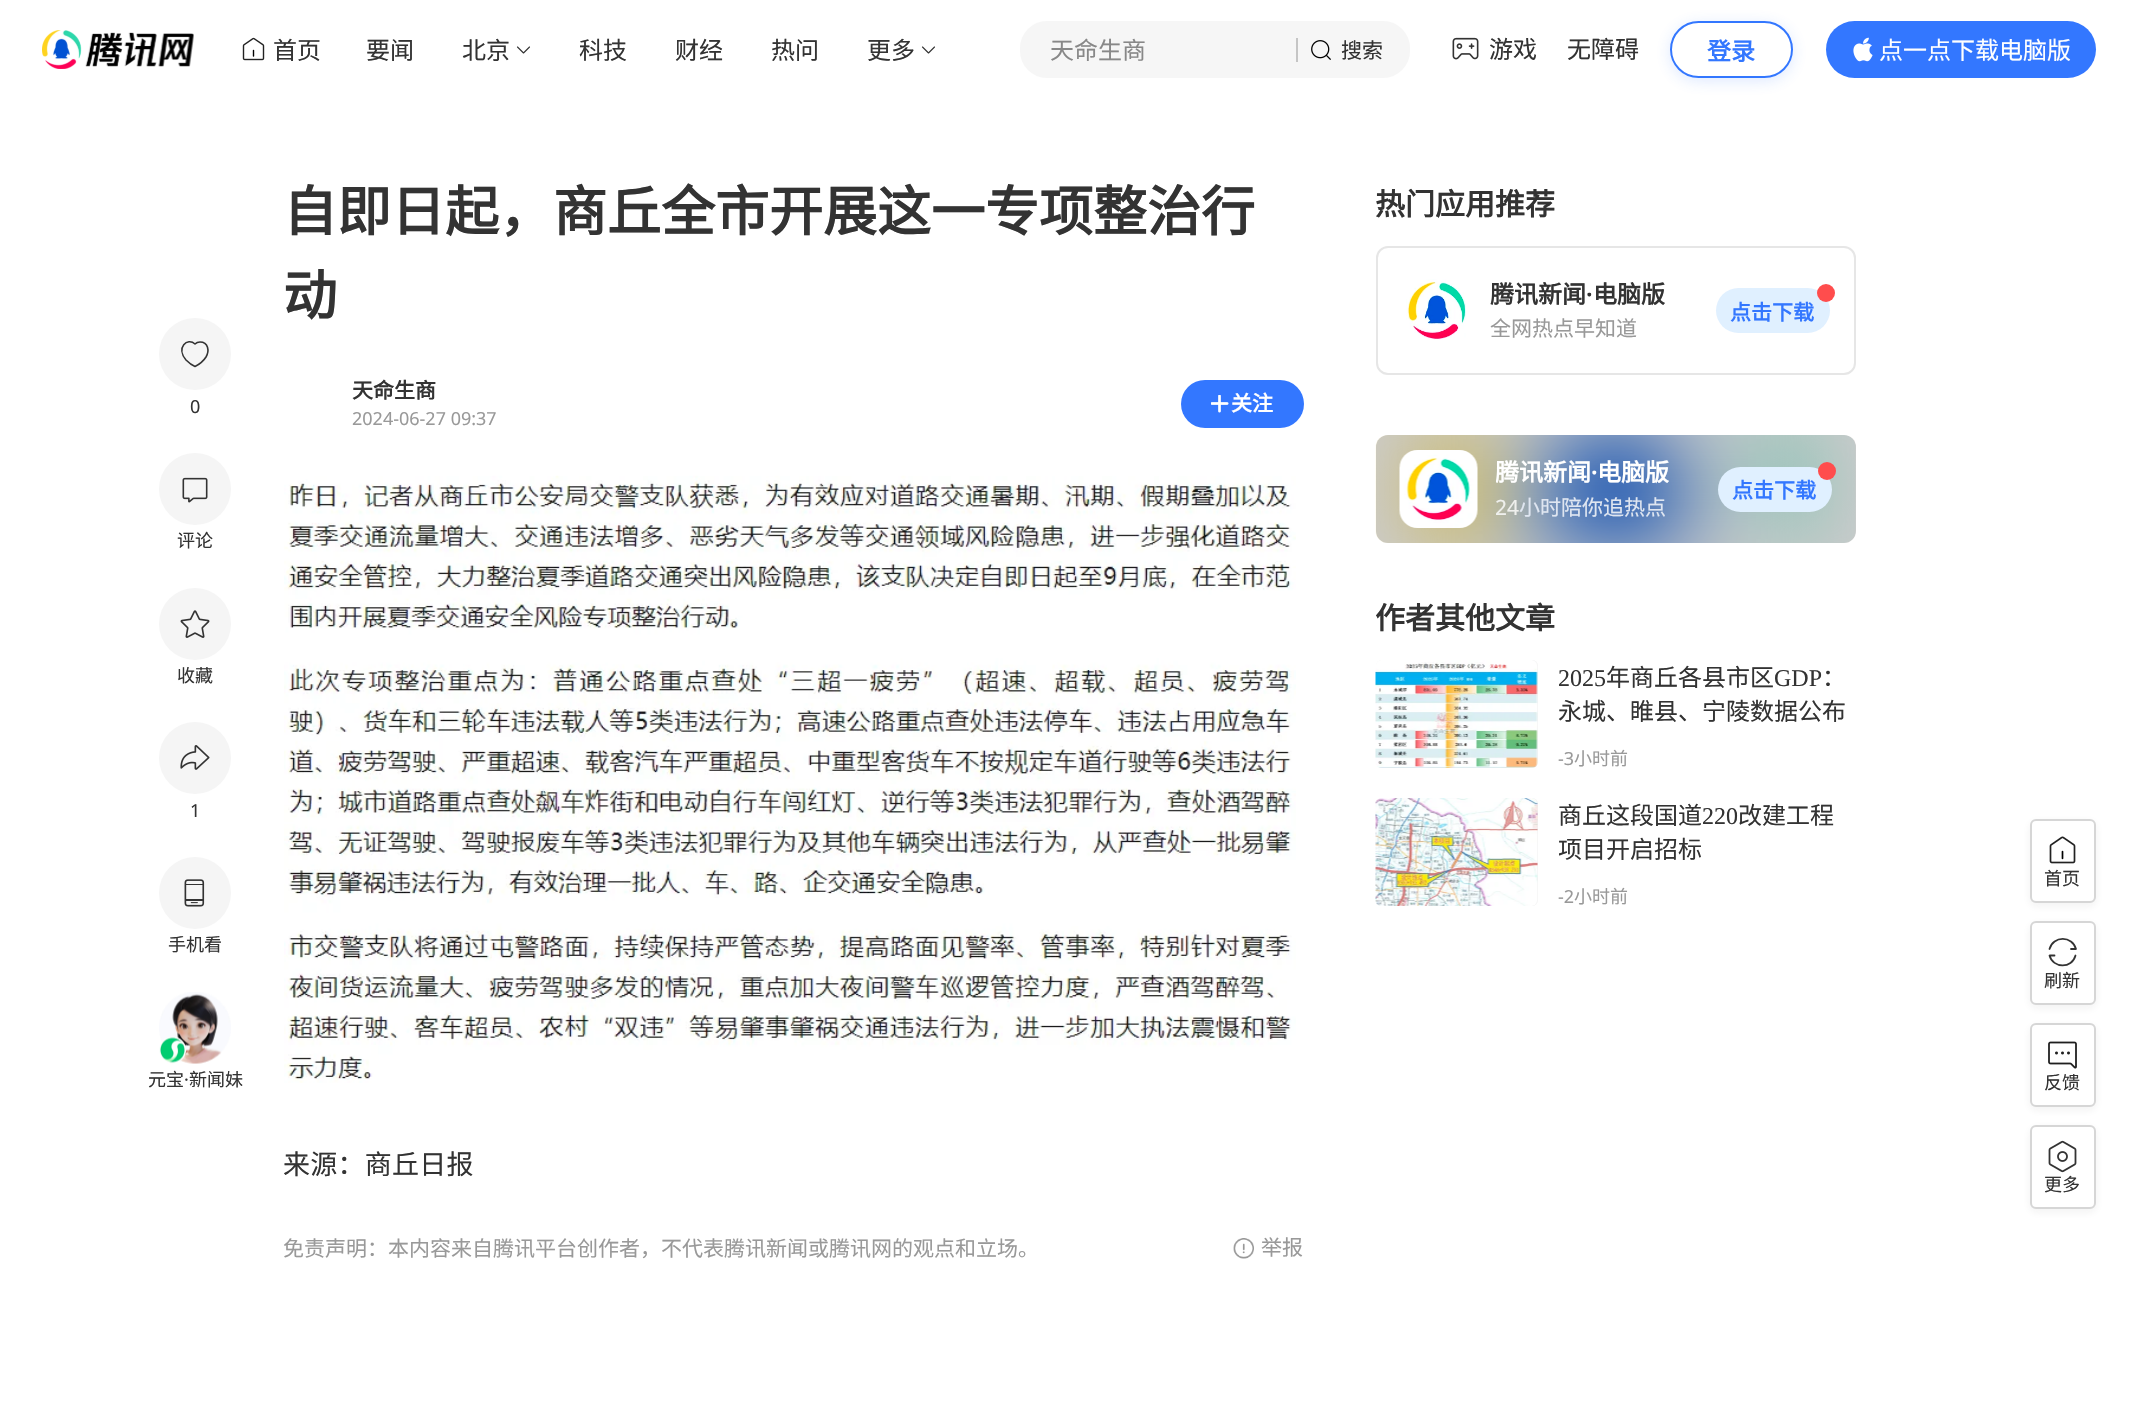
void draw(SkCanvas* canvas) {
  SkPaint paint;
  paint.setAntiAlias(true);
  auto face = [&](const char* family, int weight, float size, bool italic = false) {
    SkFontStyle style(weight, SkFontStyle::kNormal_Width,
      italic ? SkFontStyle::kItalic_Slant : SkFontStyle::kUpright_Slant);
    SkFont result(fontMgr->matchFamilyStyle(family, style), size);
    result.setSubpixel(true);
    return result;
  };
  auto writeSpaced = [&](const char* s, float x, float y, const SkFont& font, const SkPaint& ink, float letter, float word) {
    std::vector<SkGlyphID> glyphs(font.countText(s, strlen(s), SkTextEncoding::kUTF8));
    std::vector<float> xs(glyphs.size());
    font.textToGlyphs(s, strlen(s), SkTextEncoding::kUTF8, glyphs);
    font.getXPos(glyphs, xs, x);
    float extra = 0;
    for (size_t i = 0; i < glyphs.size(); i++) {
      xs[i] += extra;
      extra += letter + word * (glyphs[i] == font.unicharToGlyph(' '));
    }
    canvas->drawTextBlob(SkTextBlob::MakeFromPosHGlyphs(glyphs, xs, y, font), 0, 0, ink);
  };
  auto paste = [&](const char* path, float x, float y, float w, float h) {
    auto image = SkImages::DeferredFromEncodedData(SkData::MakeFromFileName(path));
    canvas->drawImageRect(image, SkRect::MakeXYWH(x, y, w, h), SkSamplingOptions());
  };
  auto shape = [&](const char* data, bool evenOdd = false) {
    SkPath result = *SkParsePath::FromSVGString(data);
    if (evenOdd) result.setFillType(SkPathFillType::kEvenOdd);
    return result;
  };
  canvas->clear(0xffffffff);
  paste("img/1.png", 42, 30, 152, 39);
  paste("img/2.png", 242, 37, 23, 24);
  paint.setStroke(true);
  paint.setStrokeWidth(1.1f);
  paint.setStrokeCap(SkPaint::kRound_Cap);
  paint.setStrokeJoin(SkPaint::kRound_Join);
  paint.setColor(0xff333333);
  canvas->drawPath(shape("M529.5 47L523.5 53L517.5 47"), paint);
  canvas->drawPath(shape("M934.5 47L928.5 53L922.5 47"), paint);
  paint.setStroke(false);
  paint.setColor(0xfff6f6f6);
  canvas->drawRoundRect(SkRect::MakeXYWH(1020, 21, 390, 57), 27, 27, paint);
  paint.setColor(0xffc5c5c5);
  canvas->drawRect(SkRect::MakeXYWH(1296, 38, 2, 24), paint);
  paste("img/3.png", 1311, 40, 20, 20);
  paste("img/4.png", 1452, 37, 27, 23);
  canvas->save();
  canvas->clipPath(shape("M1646 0H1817V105H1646ZM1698.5 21H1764.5C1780 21 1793 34 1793 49.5C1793 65 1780 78 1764.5 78H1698.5C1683 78 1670 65 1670 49.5C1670 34 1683 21 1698.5 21Z", true), true);
  paint.setColor(0x293377ff);
  paint.setMaskFilter(SkMaskFilter::MakeBlur(kNormal_SkBlurStyle, 7.5f));
  canvas->drawRoundRect(SkRect::MakeXYWH(1670, 24, 123, 57), 28.5f, 28.5f, paint);
  paint.setMaskFilter(nullptr);
  canvas->restore();
  paint.setStroke(true);
  paint.setStrokeWidth(2);
  paint.setStrokeCap(SkPaint::kButt_Cap);
  paint.setStrokeJoin(SkPaint::kMiter_Join);
  paint.setColor(0xff3377ff);
  canvas->drawRoundRect(SkRect::MakeXYWH(1671, 22, 121, 55), 27.5f, 27.5f, paint);
  paint.setStroke(false);
  canvas->drawRoundRect(SkRect::MakeXYWH(1826, 21, 270, 57), 28.5f, 28.5f, paint);
  paste("img/5.png", 1853, 37, 20, 25);
  paint.setColor(0xfff5f5f5);
  canvas->drawCircle(195, 354, 36, paint);
  paint.setStroke(true);
  paint.setStrokeWidth(1.6f);
  paint.setStrokeCap(SkPaint::kRound_Cap);
  paint.setStrokeJoin(SkPaint::kRound_Join);
  paint.setColor(0xff333333);
  canvas->drawPath(shape("M200 342C198.5 342 196.5 342.5 195 344C187.5 337 175.5 347.5 186 360C188.5 362.5 191.5 365 195 366.5C199 364.5 203.5 361 206 357C209.5 351 208.5 342 200 342Z"), paint);
  paint.setStroke(false);
  paint.setColor(0xfff5f5f5);
  canvas->drawCircle(195, 489, 36, paint);
  paste("img/6.png", 182, 477, 26, 26);
  canvas->drawCircle(195, 624, 36, paint);
  paste("img/7.png", 180, 610, 30, 28);
  canvas->drawCircle(195, 758, 36, paint);
  paste("img/8.png", 180, 745, 30, 25);
  canvas->drawCircle(195, 893, 36, paint);
  paste("img/9.png", 184, 879, 21, 28);
  paste("img/10.png", 159, 992, 72, 72);
  paste("img/11.png", 159, 1037, 27, 27);
  paint.setColor(0xff3377ff);
  canvas->drawRoundRect(SkRect::MakeXYWH(1181, 380, 123, 48), 24, 24, paint);
  paste("img/12.png", 1211, 395, 18, 18);
  paste("img/13.png", 284, 475, 1012, 608);
  paste("img/14.png", 1233, 1238, 21, 21);
  paint.setStroke(true);
  paint.setStrokeWidth(2);
  paint.setStrokeCap(SkPaint::kButt_Cap);
  paint.setStrokeJoin(SkPaint::kMiter_Join);
  paint.setColor(0xffe6e6e6);
  canvas->drawRoundRect(SkRect::MakeXYWH(1377, 247, 478, 127), 11, 11, paint);
  paste("img/15.png", 1406, 279, 60, 61);
  paint.setStroke(false);
  paint.setColor(0xffe0f0ff);
  canvas->drawRoundRect(SkRect::MakeXYWH(1716, 288, 114, 45), 22.5f, 22.5f, paint);
  paint.setColor(0xffff4d4d);
  canvas->drawCircle(1826, 293, 9, paint);
  paste("img/16.png", 1375, 435, 481, 108);
  paint.setColor(0x33000000);
  canvas->drawRoundRect(SkRect::MakeXYWH(1376, 435, 480, 108), 12, 12, paint);
  paste("img/17.png", 1399, 450, 79, 78);
  paint.setColor(0xffe0f0ff);
  canvas->drawRoundRect(SkRect::MakeXYWH(1718, 467, 114, 45), 22.5f, 22.5f, paint);
  paint.setColor(0xffff4d4d);
  canvas->drawCircle(1827, 471, 9, paint);
  paint.setColor(0xffeeeeee);
  canvas->drawRoundRect(SkRect::MakeXYWH(1376, 660, 162, 108), 6, 6, paint);
  paste("img/18.png", 1375, 660, 163, 108);
  canvas->drawRoundRect(SkRect::MakeXYWH(1376, 798, 162, 108), 6, 6, paint);
  paste("img/19.png", 1375, 798, 163, 108);
  paint.setColor(0x0f1f1f1f);
  paint.setMaskFilter(SkMaskFilter::MakeBlur(kNormal_SkBlurStyle, 4.5f));
  canvas->drawRoundRect(SkRect::MakeXYWH(2030, 822, 66, 84), 6, 6, paint);
  paint.setMaskFilter(nullptr);
  paint.setColor(0xffffffff);
  canvas->drawRoundRect(SkRect::MakeXYWH(2031, 820, 64, 82), 5, 5, paint);
  paint.setStroke(true);
  paint.setColor(0xffd6d6d6);
  canvas->drawRoundRect(SkRect::MakeXYWH(2031, 820, 64, 82), 5, 5, paint);
  paste("img/20.png", 2049, 836, 27, 28);
  paint.setStroke(false);
  paint.setColor(0x0f1f1f1f);
  paint.setMaskFilter(SkMaskFilter::MakeBlur(kNormal_SkBlurStyle, 4.5f));
  canvas->drawRoundRect(SkRect::MakeXYWH(2030, 924, 66, 84), 6, 6, paint);
  paint.setMaskFilter(nullptr);
  paint.setColor(0xffffffff);
  canvas->drawRoundRect(SkRect::MakeXYWH(2031, 922, 64, 82), 5, 5, paint);
  paint.setStroke(true);
  paint.setColor(0xffd6d6d6);
  canvas->drawRoundRect(SkRect::MakeXYWH(2031, 922, 64, 82), 5, 5, paint);
  paint.setStrokeWidth(1.8f);
  paint.setStrokeCap(SkPaint::kRound_Cap);
  paint.setStrokeJoin(SkPaint::kRound_Join);
  paint.setColor(0xff333333);
  canvas->drawPath(shape("M2049.5 949C2053 935.5 2072.5 935.5 2076 949H2071M2075.5 955.5C2072 969 2053 968.5 2049.5 955.5H2054.5"), paint);
  paint.setStroke(false);
  paint.setColor(0x0f1f1f1f);
  paint.setMaskFilter(SkMaskFilter::MakeBlur(kNormal_SkBlurStyle, 4.5f));
  canvas->drawRoundRect(SkRect::MakeXYWH(2030, 1026, 66, 84), 6, 6, paint);
  paint.setMaskFilter(nullptr);
  paint.setColor(0xffffffff);
  canvas->drawRoundRect(SkRect::MakeXYWH(2031, 1024, 64, 82), 5, 5, paint);
  paint.setStroke(true);
  paint.setStrokeWidth(2);
  paint.setStrokeCap(SkPaint::kButt_Cap);
  paint.setStrokeJoin(SkPaint::kMiter_Join);
  paint.setColor(0xffd6d6d6);
  canvas->drawRoundRect(SkRect::MakeXYWH(2031, 1024, 64, 82), 5, 5, paint);
  paste("img/21.png", 2048, 1041, 29, 28);
  paint.setStroke(false);
  paint.setColor(0x0f1f1f1f);
  paint.setMaskFilter(SkMaskFilter::MakeBlur(kNormal_SkBlurStyle, 4.5f));
  canvas->drawRoundRect(SkRect::MakeXYWH(2030, 1128, 66, 84), 6, 6, paint);
  paint.setMaskFilter(nullptr);
  paint.setColor(0xffffffff);
  canvas->drawRoundRect(SkRect::MakeXYWH(2031, 1126, 64, 82), 5, 5, paint);
  paint.setStroke(true);
  paint.setColor(0xffd6d6d6);
  canvas->drawRoundRect(SkRect::MakeXYWH(2031, 1126, 64, 82), 5, 5, paint);
  paste("img/22.png", 2048, 1140, 29, 33);
  auto f0 = face("Noto Sans CJK SC", 400, 24);
  paint.setStroke(false);
  paint.setColor(0xff333333);
  {
    const struct { const char* s; float x, y; } items[] = {
      {"首页", 273, 59},
      {"要闻", 366, 59},
      {"北京", 462, 59},
      {"科技", 579, 59},
      {"财经", 675, 59},
      {"热问", 771, 59},
      {"更多", 867, 59},
    };
    for (auto [s, x, y] : items) {
      canvas->drawString(s, x, y, f0, paint);
    }
  }
  paint.setColor(0xff888888);
  canvas->drawString("天命生商", 1050, 59, f0, paint);
  auto f1 = face("Noto Sans CJK SC", 400, 21);
  paint.setColor(0xff333333);
  canvas->drawString("搜索", 1341, 58, f1, paint);
  canvas->drawString("游戏", 1489, 58, f0, paint);
  canvas->drawString("无障碍", 1567, 58, f0, paint);
  auto f2 = face("Noto Sans CJK SC", 700, 24);
  paint.setColor(0xff3377ff);
  canvas->drawString("登录", 1707, 60, f2, paint);
  paint.setColor(0xffffffff);
  canvas->drawString("点一点下载电脑版", 1879, 59, f0, paint);
  auto f3 = face("Noto Sans", 400, 18);
  paint.setColor(0xff333333);
  canvas->drawString("0", 190, 413, f3, paint);
  auto f4 = face("Noto Sans CJK SC", 400, 18);
  canvas->drawString("评论", 177, 547, f4, paint);
  canvas->drawString("收藏", 177, 682, f4, paint);
  canvas->drawString("1", 190, 817, f3, paint);
  canvas->drawString("手机看", 168, 951, f4, paint);
  canvas->drawString("元宝", 148, 1086, f4, paint);
  canvas->drawString("·", 184, 1086, f3, paint);
  canvas->drawString("新闻妹", 189, 1086, f4, paint);
  auto f5 = face("Noto Sans CJK SC", 700, 54);
  canvas->drawString("自即日起，商丘全市开展这一专项整治行", 283, 231, f5, paint);
  canvas->drawString("动", 283, 315, f5, paint);
  auto f6 = face("Noto Sans CJK SC", 700, 21);
  canvas->drawString("天命生商", 352, 398, f6, paint);
  paint.setColor(0xff999999);
  canvas->drawString("2024-06-27 09:37", 352, 425, f3, paint);
  paint.setColor(0xffffffff);
  canvas->drawString("关注", 1231, 411, f6, paint);
  auto f7 = face("Noto Sans CJK SC", 400, 27);
  paint.setColor(0xff333333);
  writeSpaced("来源：商丘日报", 283, 1174, f7, paint, 0.25f, 0);
  paint.setColor(0xff999999);
  canvas->drawString("免责声明：本内容来自腾讯平台创作者，不代表腾讯新闻或腾讯网的观点和立场。", 283, 1256, f1, paint);
  canvas->drawString("举报", 1261, 1255, f1, paint);
  auto f8 = face("Noto Sans CJK SC", 700, 30);
  paint.setColor(0xff333333);
  canvas->drawString("热门应用推荐", 1375, 215, f8, paint);
  canvas->drawString("腾讯新闻", 1490, 303, f2, paint);
  auto f9 = face("Noto Sans", 600, 24);
  canvas->drawString("·", 1586, 303, f9, paint);
  canvas->drawString("电脑版", 1593, 303, f2, paint);
  paint.setColor(0xff999999);
  canvas->drawString("全网热点早知道", 1490, 336, f1, paint);
  paint.setColor(0xff3377ff);
  canvas->drawString("点击下载", 1730, 320, f6, paint);
  canvas->save();
  canvas->clipRect(SkRect::MakeXYWH(1496, 459, 222, 27));
  paint.setColor(0xffffffff);
  canvas->drawString("腾讯新闻", 1495, 481, f2, paint);
  canvas->restore();
  canvas->drawString("·", 1591, 481, f9, paint);
  canvas->drawString("电脑版", 1597, 481, f2, paint);
  auto f10 = face("Noto Sans", 400, 21);
  paint.setColor(0xffeff0ed);
  canvas->drawString("24", 1495, 515, f10, paint);
  paint.setColor(0xffdfe6f1);
  canvas->drawString("小时陪你追热点", 1519, 515, f1, paint);
  paint.setColor(0xff3377ff);
  canvas->drawString("点击下载", 1732, 498, f6, paint);
  paint.setColor(0xff333333);
  canvas->drawString("作者其他文章", 1375, 629, f8, paint);
  auto f11 = face("Liberation Serif", 400, 24);
  canvas->drawString("2025", 1558, 686, f11, paint);
  canvas->drawString("年商丘各县市区", 1606, 686, f0, paint);
  canvas->drawString("GDP", 1774, 686, f11, paint);
  canvas->drawString("：", 1822, 686, f0, paint);
  canvas->drawString("永城、睢县、宁陵数据公布", 1558, 720, f0, paint);
  paint.setColor(0xff999999);
  canvas->drawString("-3", 1558, 765, f3, paint);
  canvas->drawString("小时前", 1574, 765, f4, paint);
  paint.setColor(0xff333333);
  canvas->drawString("商丘这段国道", 1558, 824, f0, paint);
  canvas->drawString("220", 1702, 824, f11, paint);
  canvas->drawString("改建工程", 1738, 824, f0, paint);
  canvas->save();
  canvas->clipRect(SkRect::MakeXYWH(1559, 798, 297, 69));
  canvas->drawString("项目开启招标", 1558, 858, f0, paint);
  canvas->restore();
  paint.setColor(0xff999999);
  canvas->drawString("-2", 1558, 903, f3, paint);
  canvas->drawString("小时前", 1574, 903, f4, paint);
  paint.setColor(0xff333333);
  {
    const struct { const char* s; float x, y; } items[] = {
      {"首页", 2044, 885},
      {"刷新", 2044, 987},
      {"反馈", 2044, 1089},
      {"更多", 2044, 1191},
    };
    for (auto [s, x, y] : items) {
      canvas->drawString(s, x, y, f4, paint);
    }
  }
}
